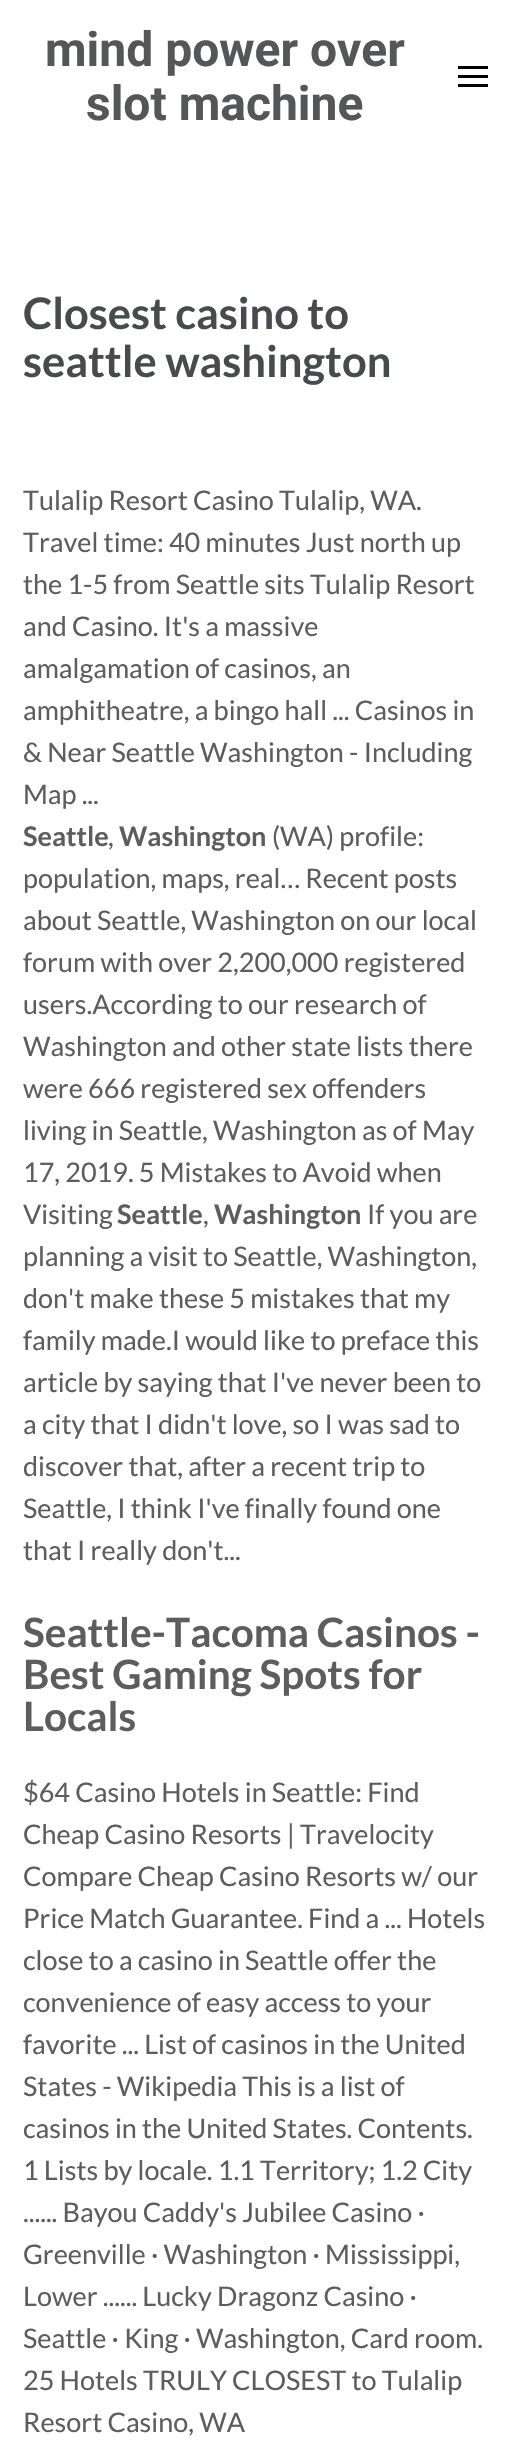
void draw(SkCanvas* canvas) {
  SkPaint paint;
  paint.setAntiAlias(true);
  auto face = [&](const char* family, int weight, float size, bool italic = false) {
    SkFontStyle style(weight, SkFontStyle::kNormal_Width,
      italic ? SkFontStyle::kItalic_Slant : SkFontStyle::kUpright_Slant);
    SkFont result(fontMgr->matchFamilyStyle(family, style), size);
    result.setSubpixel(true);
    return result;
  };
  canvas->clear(0xffffffff);
  {
    const struct { float x, y, w, h; SkColor color; } items[] = {
      {458, 66, 30, 3, 0xff000000},
      {458, 75, 30, 3, 0xff000000},
      {458, 84, 30, 3, 0xff000000},
    };
    for (auto [x, y, w, h, color] : items) {
      paint.setColor(color);
      canvas->drawRect(SkRect::MakeXYWH(x, y, w, h), paint);
    }
  }
  auto f0 = face("Roboto", 700, 48);
  paint.setColor(0xff555658);
  canvas->drawString("mind power over", 45, 66, f0, paint);
  canvas->drawString("slot machine", 86, 120, f0, paint);
  auto f1 = face("Lato", 700, 43.5f);
  paint.setColor(0xff474b4e);
  canvas->drawString("Closest casino to", 23, 329, f1, paint);
  canvas->drawString("seattle washington", 23, 377, f1, paint);
  auto f2 = face("Lato", 400, 27);
  paint.setColor(0xff5d5d5d);
  {
    const struct { const char* s; float x, y; } items[] = {
      {"Tulalip Resort Casino Tulalip, WA.", 23, 510},
      {"Travel time: 40 minutes Just north up", 23, 552},
      {"the 1-5 from Seattle sits Tulalip Resort", 23, 594},
      {"and Casino. It's a massive", 23, 636},
      {"amalgamation of casinos, an", 23, 678},
      {"amphitheatre, a bingo hall ... Casinos in", 23, 720},
      {"& Near Seattle Washington - Including", 23, 762},
      {"Map ...", 23, 804},
    };
    for (auto [s, x, y] : items) {
      canvas->drawString(s, x, y, f2, paint);
    }
  }
  auto f3 = face("Lato", 700, 27);
  canvas->drawString("Seattle", 23, 846, f3, paint);
  canvas->drawString(",", 108, 846, f2, paint);
  canvas->drawString("Washington", 119, 846, f3, paint);
  {
    const struct { const char* s; float x, y; } items[] = {
      {"(WA) profile:", 272, 846},
      {"population, maps, real… Recent posts", 23, 888},
      {"about Seattle, Washington on our local", 23, 930},
      {"forum with over 2,200,000 registered", 23, 972},
      {"users.According to our research of", 23, 1014},
      {"Washington and other state lists there", 23, 1056},
      {"were 666 registered sex offenders", 23, 1098},
      {"living in Seattle, Washington as of May", 23, 1140},
      {"17, 2019. 5 Mistakes to Avoid when", 23, 1182},
      {"Visiting", 23, 1224},
    };
    for (auto [s, x, y] : items) {
      canvas->drawString(s, x, y, f2, paint);
    }
  }
  canvas->drawString("Seattle", 117, 1224, f3, paint);
  canvas->drawString(",", 203, 1224, f2, paint);
  canvas->drawString("Washington", 214, 1224, f3, paint);
  {
    const struct { const char* s; float x, y; } items[] = {
      {"If you are", 367, 1224},
      {"planning a visit to Seattle, Washington,", 23, 1266},
      {"don't make these 5 mistakes that my", 23, 1308},
      {"family made.I would like to preface this", 23, 1350},
      {"article by saying that I've never been to", 23, 1392},
      {"a city that I didn't love, so I was sad to", 23, 1434},
      {"discover that, after a recent trip to", 23, 1476},
      {"Seattle, I think I've finally found one", 23, 1518},
      {"that I really don't...", 23, 1560},
    };
    for (auto [s, x, y] : items) {
      canvas->drawString(s, x, y, f2, paint);
    }
  }
  auto f4 = face("Lato", 700, 40.5f);
  {
    const struct { const char* s; float x, y; } items[] = {
      {"Seattle-Tacoma Casinos -", 23, 1647},
      {"Best Gaming Spots for", 23, 1689},
      {"Locals", 23, 1731},
    };
    for (auto [s, x, y] : items) {
      canvas->drawString(s, x, y, f4, paint);
    }
  }
  {
    const struct { const char* s; float x, y; } items[] = {
      {"$64 Casino Hotels in Seattle: Find", 23, 1802},
      {"Cheap Casino Resorts | Travelocity", 23, 1844},
      {"Compare Cheap Casino Resorts w/ our", 23, 1886},
      {"Price Match Guarantee. Find a ... Hotels", 23, 1928},
      {"close to a casino in Seattle offer the", 23, 1970},
      {"convenience of easy access to your", 23, 2012},
      {"favorite ... List of casinos in the United", 23, 2054},
      {"States - Wikipedia This is a list of", 23, 2096},
      {"casinos in the United States. Contents.", 23, 2138},
      {"1 Lists by locale. 1.1 Territory; 1.2 City", 23, 2180},
      {"...... Bayou Caddy's Jubilee Casino ·", 23, 2222},
      {"Greenville · Washington · Mississippi,", 23, 2264},
      {"Lower ...... Lucky Dragonz Casino ·", 23, 2306},
      {"Seattle · King · Washington, Card room.", 23, 2348},
      {"25 Hotels TRULY CLOSEST to Tulalip", 23, 2390},
      {"Resort Casino, WA", 23, 2432},
    };
    for (auto [s, x, y] : items) {
      canvas->drawString(s, x, y, f2, paint);
    }
  }
}
